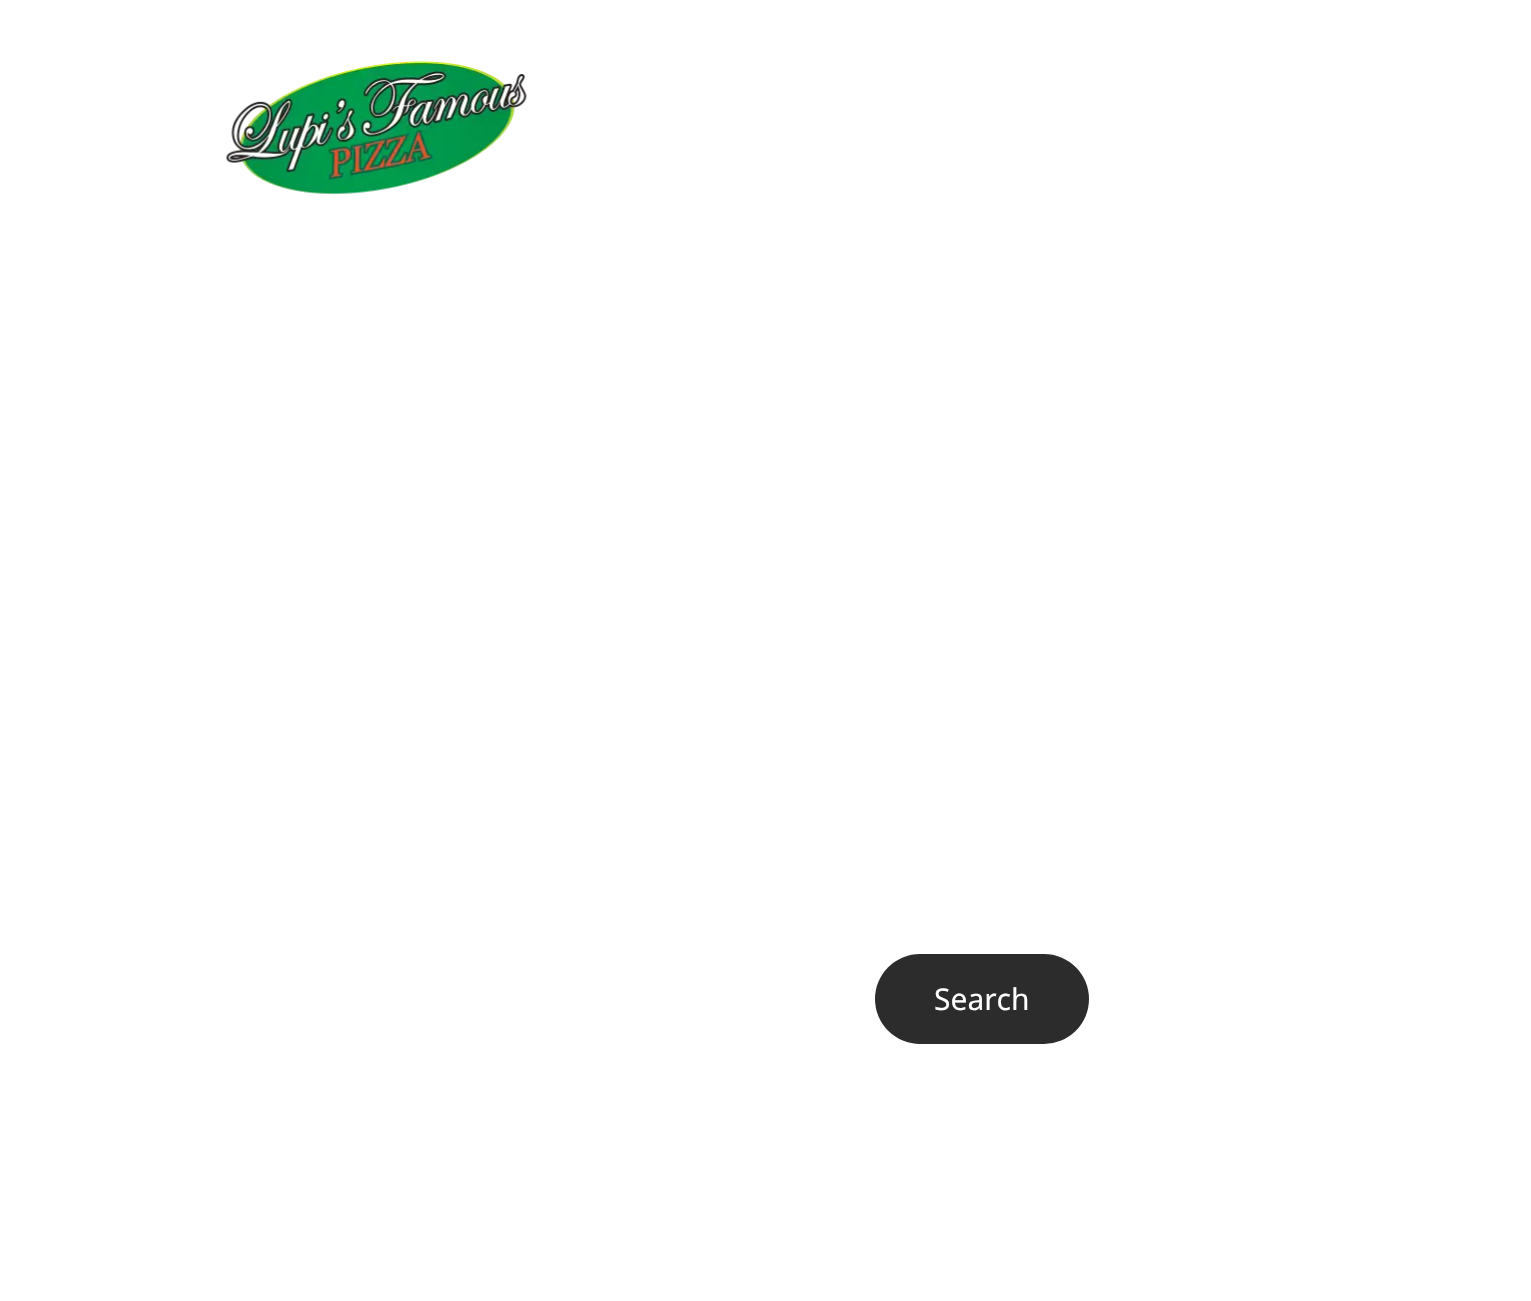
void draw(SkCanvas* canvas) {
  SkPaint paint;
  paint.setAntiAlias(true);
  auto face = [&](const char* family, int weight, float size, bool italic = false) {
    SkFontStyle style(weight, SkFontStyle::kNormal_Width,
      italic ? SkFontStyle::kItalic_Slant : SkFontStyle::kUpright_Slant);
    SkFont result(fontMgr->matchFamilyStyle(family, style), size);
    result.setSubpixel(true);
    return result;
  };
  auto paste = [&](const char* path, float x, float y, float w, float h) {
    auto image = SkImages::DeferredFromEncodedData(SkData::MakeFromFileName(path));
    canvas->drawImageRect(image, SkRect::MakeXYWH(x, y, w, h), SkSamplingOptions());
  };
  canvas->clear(0xffffffff);
  paste("img/1.png", 226, 61, 301, 134);
  paint.setColor(0xff2c2c2c);
  canvas->drawRoundRect(SkRect::MakeXYWH(875, 954, 214, 90), 45, 45, paint);
  auto f0 = face("Noto Sans", 400, 30);
  paint.setColor(0xffffffff);
  canvas->drawString("Search", 934, 1010, f0, paint);
}
